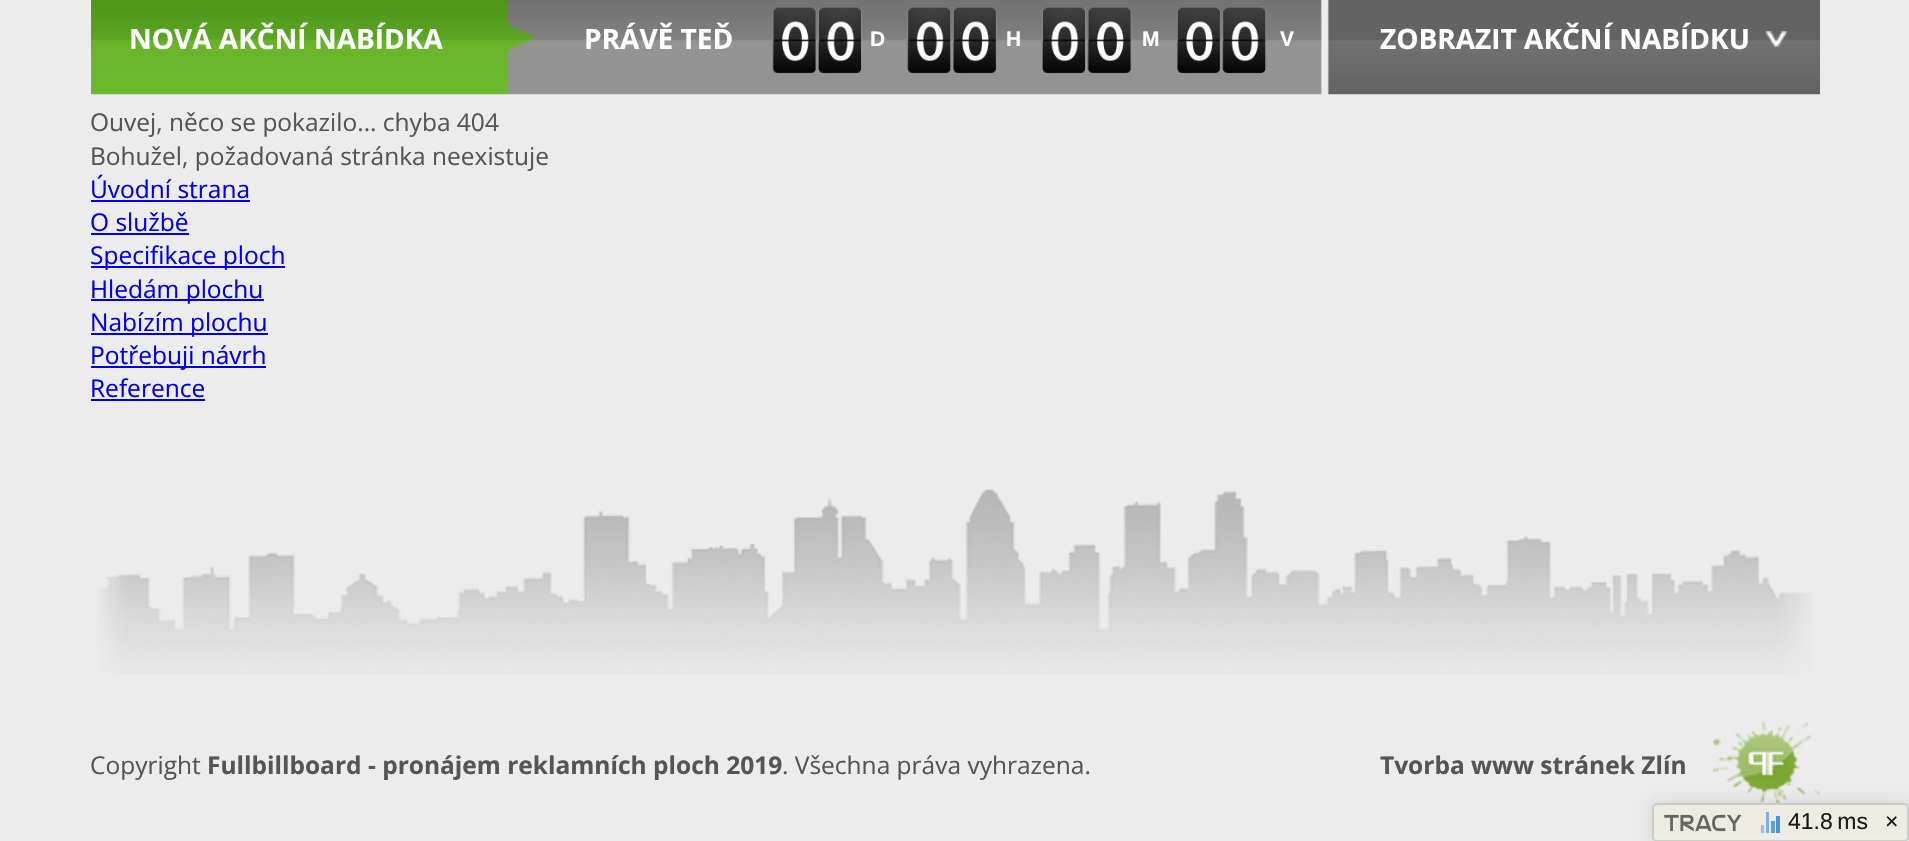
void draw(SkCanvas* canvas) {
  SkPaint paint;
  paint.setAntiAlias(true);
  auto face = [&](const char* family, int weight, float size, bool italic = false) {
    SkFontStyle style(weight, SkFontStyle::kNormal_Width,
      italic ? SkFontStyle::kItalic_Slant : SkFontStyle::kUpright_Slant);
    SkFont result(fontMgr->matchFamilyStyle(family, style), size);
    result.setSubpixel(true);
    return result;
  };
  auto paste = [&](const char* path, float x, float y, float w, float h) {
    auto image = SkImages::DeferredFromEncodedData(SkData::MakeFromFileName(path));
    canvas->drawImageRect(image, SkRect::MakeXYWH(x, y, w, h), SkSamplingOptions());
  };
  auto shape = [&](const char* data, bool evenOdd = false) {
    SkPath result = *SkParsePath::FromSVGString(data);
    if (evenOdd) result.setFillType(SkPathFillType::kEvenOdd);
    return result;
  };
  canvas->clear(0xffececec);
  paste("img/1.png", 91, 0, 1729, 95);
  paste("img/2.png", 772, 7, 45, 67);
  paste("img/3.png", 818, 7, 44, 67);
  paste("img/4.png", 907, 7, 44, 67);
  paste("img/5.png", 953, 7, 44, 67);
  paste("img/6.png", 1042, 7, 44, 67);
  paste("img/7.png", 1087, 7, 45, 67);
  paste("img/5.png", 1177, 7, 44, 67);
  paste("img/8.png", 1222, 7, 44, 67);
  paste("img/9.png", 1765, 31, 22, 16);
  {
    const struct { float x, y, w, h; SkColor color; } items[] = {
      {91, 200, 159, 2, 0xff0000ee},
      {91, 233, 98, 2, 0xff0000ee},
      {91, 266, 194, 2, 0xff0000ee},
      {91, 299, 173, 2, 0xff0000ee},
      {91, 333, 177, 2, 0xff0000ee},
      {91, 366, 175, 2, 0xff0000ee},
      {91, 399, 114, 2, 0xff0000ee},
    };
    for (auto [x, y, w, h, color] : items) {
      paint.setColor(color);
      canvas->drawRect(SkRect::MakeXYWH(x, y, w, h), paint);
    }
  }
  paste("img/10.png", 97, 489, 1716, 185);
  paste("img/11.png", 1713, 719, 107, 84);
  canvas->save();
  canvas->clipPath(shape("M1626 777H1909V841H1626ZM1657 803H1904C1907 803 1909 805 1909 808V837C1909 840 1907 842 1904 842H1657C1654 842 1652 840 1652 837V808C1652 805 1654 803 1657 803Z", true), true);
  paint.setColor(0x24000000);
  paint.setMaskFilter(SkMaskFilter::MakeBlur(kNormal_SkBlurStyle, 9));
  canvas->drawRoundRect(SkRect::MakeXYWH(1654, 805, 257, 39), 5, 5, paint);
  paint.setMaskFilter(nullptr);
  canvas->restore();
  paint.setColor(0xe6edeae0);
  canvas->drawRoundRect(SkRect::MakeXYWH(1652, 803, 257, 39), 5, 5, paint);
  paste("img/12.png", 1653, 836, 256, 5);
  paint.setStroke(true);
  paint.setStrokeWidth(2);
  paint.setColor(0xe6c9c9c9);
  canvas->drawRoundRect(SkRect::MakeXYWH(1653, 804, 255, 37), 4, 4, paint);
  paste("img/13.png", 1664, 814, 77, 18);
  paint.setStroke(false);
  {
    const struct { float x, y, w, h; SkColor color; } items[] = {
      {1761, 825, 3, 8, 0xff90c0f0},
      {1766, 812, 3, 21, 0xff78b0e7},
      {1771, 821, 4, 12, 0xff5f9fde},
      {1776, 816, 4, 17, 0xff4b91d6},
    };
    for (auto [x, y, w, h, color] : items) {
      paint.setColor(color);
      canvas->drawRect(SkRect::MakeXYWH(x, y, w, h), paint);
    }
  }
  auto f0 = face("Open Sans", 700, 28);
  paint.setColor(0xffffffff);
  canvas->drawString("NOVÁ AKČNÍ NABÍDKA", 129, 49, f0, paint);
  canvas->drawString("PRÁVĚ TEĎ", 584, 49, f0, paint);
  auto f1 = face("Liberation Sans", 700, 21);
  {
    const struct { const char* s; float x, y; } items[] = {
      {"D", 870, 46},
      {"H", 1006, 46},
      {"M", 1142, 46},
      {"V", 1280, 46},
    };
    for (auto [s, x, y] : items) {
      canvas->drawString(s, x, y, f1, paint);
    }
  }
  canvas->drawString("ZOBRAZIT AKČNÍ NABÍDKU", 1380, 49, f0, paint);
  auto f2 = face("Open Sans", 400, 24.5f);
  paint.setColor(0xff555555);
  canvas->drawString("Ouvej, něco se pokazilo... chyba 404", 90, 131, f2, paint);
  canvas->drawString("Bohužel, požadovaná stránka neexistuje", 90, 165, f2, paint);
  paint.setColor(0xff0000ee);
  {
    const struct { const char* s; float x, y; } items[] = {
      {"Úvodní strana", 90, 198},
      {"O službě", 90, 231},
      {"Specifikace ploch", 90, 264},
      {"Hledám plochu", 90, 298},
      {"Nabízím plochu", 90, 331},
      {"Potřebuji návrh", 90, 364},
      {"Reference", 90, 397},
    };
    for (auto [s, x, y] : items) {
      canvas->drawString(s, x, y, f2, paint);
    }
  }
  paint.setColor(0xff555555);
  canvas->drawString("Copyright", 90, 774, f2, paint);
  auto f3 = face("Open Sans", 700, 24.5f);
  canvas->drawString("Fullbillboard - pronájem reklamních ploch 2019", 207, 774, f3, paint);
  canvas->drawString(". Všechna práva vyhrazena.", 782, 774, f2, paint);
  canvas->drawString("Tvorba www stránek Zlín", 1380, 774, f3, paint);
  auto f4 = face("Liberation Sans", 400, 23);
  paint.setColor(0xff181818);
  canvas->drawString("41.8 ms", 1788, 829, f4, paint);
  canvas->drawString("×", 1885, 829, f4, paint);
}
